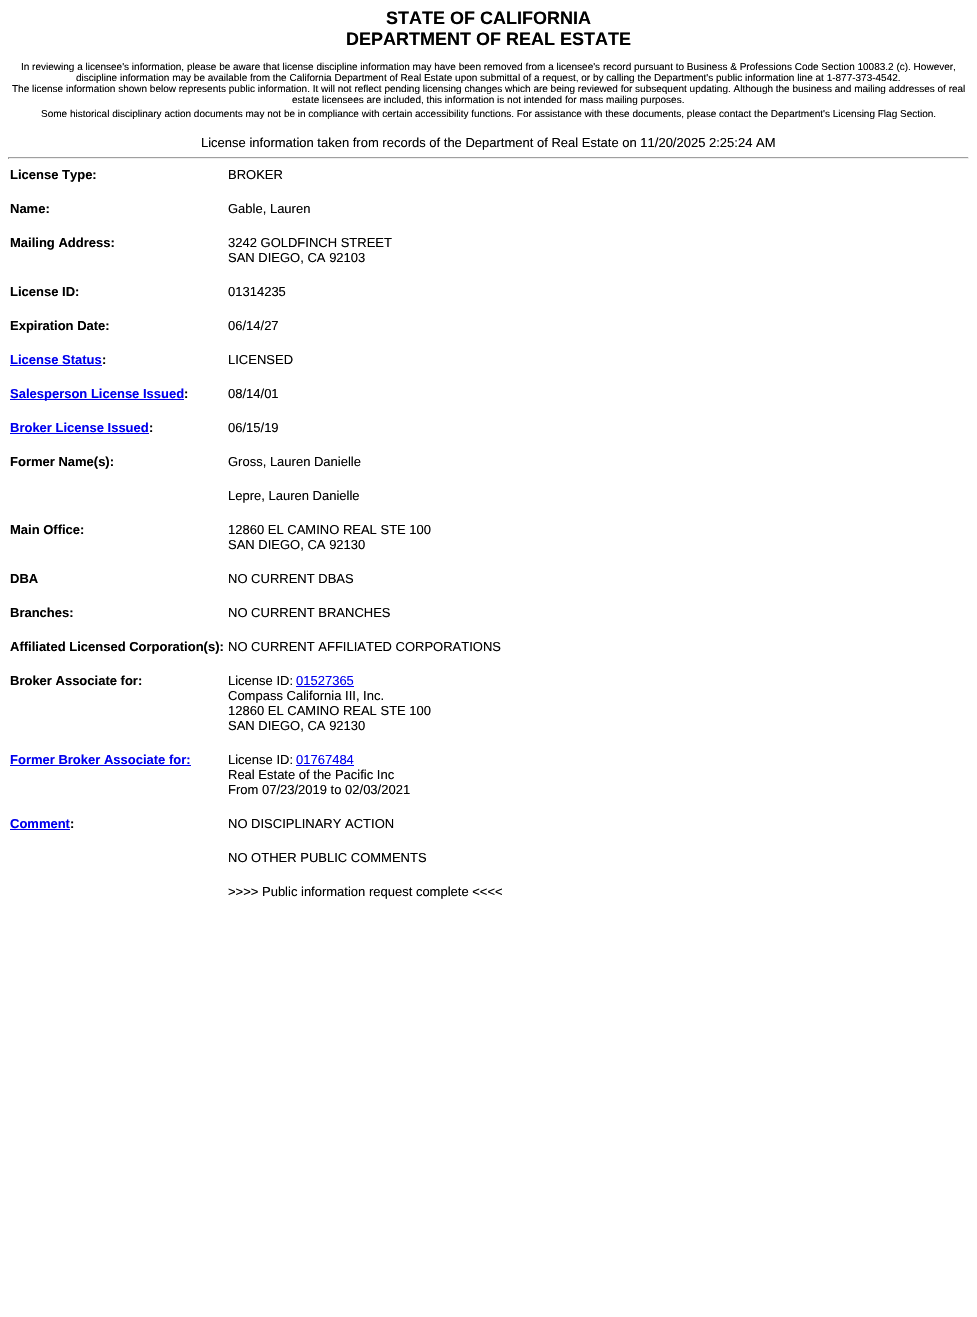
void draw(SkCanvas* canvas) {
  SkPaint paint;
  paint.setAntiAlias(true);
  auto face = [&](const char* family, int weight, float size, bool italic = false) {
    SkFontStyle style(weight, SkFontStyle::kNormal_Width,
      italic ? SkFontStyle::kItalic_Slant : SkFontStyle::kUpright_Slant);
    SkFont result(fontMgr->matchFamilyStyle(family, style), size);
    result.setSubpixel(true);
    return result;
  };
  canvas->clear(0xffffffff);
  {
    const struct { float x, y, w, h; SkColor color; } items[] = {
      {8, 157, 961, 1, 0xff9f9f9f},
      {968, 157, 1, 2, 0xffeeeeee},
      {8, 158, 961, 1, 0xffeeeeee},
      {8, 157, 1, 2, 0xff9f9f9f},
      {10, 365, 92, 1, 0xff0000ee},
      {10, 399, 174, 1, 0xff0000ee},
      {10, 433, 139, 1, 0xff0000ee},
      {296, 686, 58, 1, 0xff0000ee},
      {10, 765, 181, 1, 0xff0000ee},
      {296, 765, 58, 1, 0xff0000ee},
      {10, 829, 60, 1, 0xff0000ee},
    };
    for (auto [x, y, w, h, color] : items) {
      paint.setColor(color);
      canvas->drawRect(SkRect::MakeXYWH(x, y, w, h), paint);
    }
  }
  auto f0 = face("Liberation Sans", 700, 18);
  paint.setColor(0xff000000);
  canvas->drawString("STATE OF CALIFORNIA", 386, 24, f0, paint);
  canvas->drawString("DEPARTMENT OF REAL ESTATE", 346, 45, f0, paint);
  auto f1 = face("Liberation Sans", 400, 10);
  {
    const struct { const char* s; float x, y; } items[] = {
      {"In reviewing a licensee's information, please be aware that license discipline information may have been removed from a licensee's record pursuant to Business & Professions Code Section 10083.2 (c). However,", 21, 70},
      {"discipline information may be available from the California Department of Real Estate upon submittal of a request, or by calling the Department's public information line at 1-877-373-4542.", 76, 81},
      {"The license information shown below represents public information. It will not reflect pending licensing changes which are being reviewed for subsequent updating. Although the business and mailing addresses of real", 12, 92},
      {"estate licensees are included, this information is not intended for mass mailing purposes.", 292, 103},
      {"Some historical disciplinary action documents may not be in compliance with certain accessibility functions. For assistance with these documents, please contact the Department's Licensing Flag Section.", 41, 117},
    };
    for (auto [s, x, y] : items) {
      canvas->drawString(s, x, y, f1, paint);
    }
  }
  auto f2 = face("Liberation Sans", 400, 13);
  canvas->drawString("License information taken from records of the Department of Real Estate on 11/20/2025 2:25:24 AM", 201, 147, f2, paint);
  auto f3 = face("Liberation Sans", 700, 13);
  canvas->drawString("License Type:", 10, 179, f3, paint);
  canvas->drawString("BROKER", 228, 179, f2, paint);
  canvas->drawString("Name:", 10, 213, f3, paint);
  canvas->drawString("Gable, Lauren", 228, 213, f2, paint);
  canvas->drawString("Mailing Address:", 10, 247, f3, paint);
  canvas->drawString("3242 GOLDFINCH STREET", 228, 247, f2, paint);
  canvas->drawString("SAN DIEGO, CA 92103", 228, 262, f2, paint);
  canvas->drawString("License ID:", 10, 296, f3, paint);
  canvas->drawString("01314235", 228, 296, f2, paint);
  canvas->drawString("Expiration Date:", 10, 330, f3, paint);
  canvas->drawString("06/14/27", 228, 330, f2, paint);
  paint.setColor(0xff0000ee);
  canvas->drawString("License Status", 10, 364, f3, paint);
  paint.setColor(0xff000000);
  canvas->drawString(":", 102, 364, f3, paint);
  canvas->drawString("LICENSED", 228, 364, f2, paint);
  paint.setColor(0xff0000ee);
  canvas->drawString("Salesperson License Issued", 10, 398, f3, paint);
  paint.setColor(0xff000000);
  canvas->drawString(":", 184, 398, f3, paint);
  canvas->drawString("08/14/01", 228, 398, f2, paint);
  paint.setColor(0xff0000ee);
  canvas->drawString("Broker License Issued", 10, 432, f3, paint);
  paint.setColor(0xff000000);
  canvas->drawString(":", 149, 432, f3, paint);
  canvas->drawString("06/15/19", 228, 432, f2, paint);
  canvas->drawString("Former Name(s):", 10, 466, f3, paint);
  canvas->drawString("Gross, Lauren Danielle", 228, 466, f2, paint);
  canvas->drawString("Lepre, Lauren Danielle", 228, 500, f2, paint);
  canvas->drawString("Main Office:", 10, 534, f3, paint);
  canvas->drawString("12860 EL CAMINO REAL STE 100", 228, 534, f2, paint);
  canvas->drawString("SAN DIEGO, CA 92130", 228, 549, f2, paint);
  canvas->drawString("DBA", 10, 583, f3, paint);
  canvas->drawString("NO CURRENT DBAS", 228, 583, f2, paint);
  canvas->drawString("Branches:", 10, 617, f3, paint);
  canvas->drawString("NO CURRENT BRANCHES", 228, 617, f2, paint);
  canvas->drawString("Affiliated Licensed Corporation(s):", 10, 651, f3, paint);
  canvas->drawString("NO CURRENT AFFILIATED CORPORATIONS", 228, 651, f2, paint);
  canvas->drawString("Broker Associate for:", 10, 685, f3, paint);
  canvas->drawString("License ID:", 228, 685, f2, paint);
  paint.setColor(0xff0000ee);
  canvas->drawString("01527365", 296, 685, f2, paint);
  paint.setColor(0xff000000);
  {
    const struct { const char* s; float x, y; } items[] = {
      {"Compass California III, Inc.", 228, 700},
      {"12860 EL CAMINO REAL STE 100", 228, 715},
      {"SAN DIEGO, CA 92130", 228, 730},
    };
    for (auto [s, x, y] : items) {
      canvas->drawString(s, x, y, f2, paint);
    }
  }
  paint.setColor(0xff0000ee);
  canvas->drawString("Former Broker Associate for:", 10, 764, f3, paint);
  paint.setColor(0xff000000);
  canvas->drawString("License ID:", 228, 764, f2, paint);
  paint.setColor(0xff0000ee);
  canvas->drawString("01767484", 296, 764, f2, paint);
  paint.setColor(0xff000000);
  canvas->drawString("Real Estate of the Pacific Inc", 228, 779, f2, paint);
  canvas->drawString("From 07/23/2019 to 02/03/2021", 228, 794, f2, paint);
  paint.setColor(0xff0000ee);
  canvas->drawString("Comment", 10, 828, f3, paint);
  paint.setColor(0xff000000);
  canvas->drawString(":", 70, 828, f3, paint);
  {
    const struct { const char* s; float x, y; } items[] = {
      {"NO DISCIPLINARY ACTION", 228, 828},
      {"NO OTHER PUBLIC COMMENTS", 228, 862},
      {">>>> Public information request complete <<<<", 228, 896},
    };
    for (auto [s, x, y] : items) {
      canvas->drawString(s, x, y, f2, paint);
    }
  }
}
